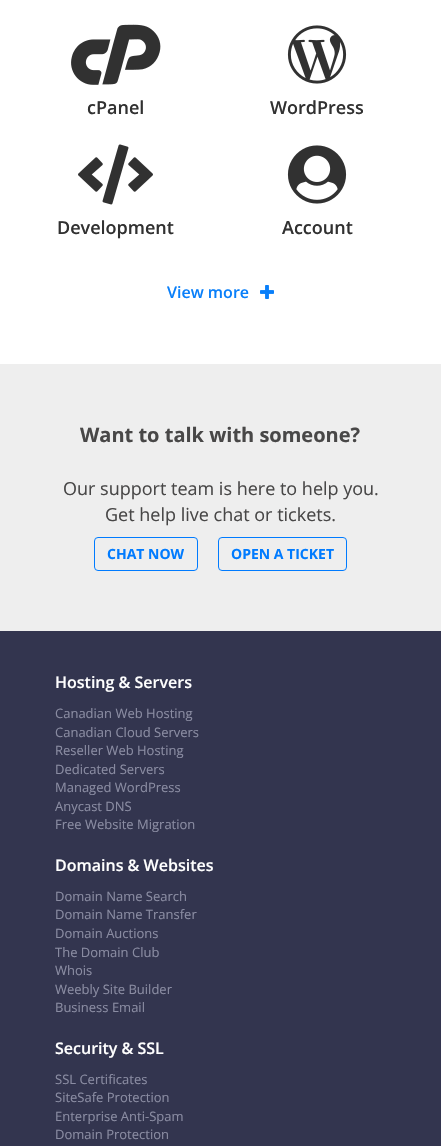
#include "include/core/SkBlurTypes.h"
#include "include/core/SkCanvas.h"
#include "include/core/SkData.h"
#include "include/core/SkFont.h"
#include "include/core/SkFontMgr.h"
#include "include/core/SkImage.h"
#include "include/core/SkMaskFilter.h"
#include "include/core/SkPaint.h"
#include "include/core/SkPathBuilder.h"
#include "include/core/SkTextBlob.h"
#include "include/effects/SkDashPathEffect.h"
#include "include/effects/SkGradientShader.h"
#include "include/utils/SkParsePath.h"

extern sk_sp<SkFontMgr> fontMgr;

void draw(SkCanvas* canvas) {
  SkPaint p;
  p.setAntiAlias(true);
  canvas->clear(SK_ColorWHITE);
  canvas->drawImageRect(SkImages::DeferredFromEncodedData(SkData::MakeFromFileName("images/1.png")), SkRect::MakeLTRB(71, 24, 161, 85), SkSamplingOptions());
  canvas->drawImageRect(SkImages::DeferredFromEncodedData(SkData::MakeFromFileName("images/2.png")), SkRect::MakeLTRB(287, 25, 347, 84), SkSamplingOptions());
  canvas->drawImageRect(SkImages::DeferredFromEncodedData(SkData::MakeFromFileName("images/3.png")), SkRect::MakeLTRB(78, 144, 153, 205), SkSamplingOptions());
  canvas->drawImageRect(SkImages::DeferredFromEncodedData(SkData::MakeFromFileName("images/4.png")), SkRect::MakeLTRB(287, 145, 347, 204), SkSamplingOptions());
  canvas->drawImageRect(SkImages::DeferredFromEncodedData(SkData::MakeFromFileName("images/5.png")), SkRect::MakeLTRB(260, 285, 274, 299), SkSamplingOptions());
  p.setColor(SkColorSetRGB(238, 238, 238));
  canvas->drawRect(SkRect::MakeLTRB(0, 364, 441, 631), p);
  p.setStyle(SkPaint::kStroke_Style);
  p.setStrokeWidth(1);
  p.setColor(SkColorSetRGB(0, 123, 255));
  canvas->drawRoundRect(SkRect::MakeLTRB(94.5f, 537.5f, 197.5f, 570.5f), 3.5f, 3.5f, p);
  canvas->drawRoundRect(SkRect::MakeLTRB(218.5f, 537.5f, 346.5f, 570.5f), 3.5f, 3.5f, p);
  p.setStyle(SkPaint::kFill_Style);
  p.setColor(SkColorSetRGB(51, 53, 79));
  canvas->drawRect(SkRect::MakeLTRB(0, 631, 441, 1146), p);
  SkFont font1(fontMgr->matchFamilyStyle("Open Sans", SkFontStyle(600, SkFontStyle::kNormal_Width, SkFontStyle::kUpright_Slant)), 18);
  font1.setSubpixel(true);
  p.setColor(SkColorSetRGB(49, 49, 49));
  canvas->drawString("cPanel", 87, 114, font1, p);
  canvas->drawString("WordPress", 270, 114, font1, p);
  canvas->drawString("Development", 57, 234, font1, p);
  canvas->drawString("Account", 282, 234, font1, p);
  SkFont font2(fontMgr->matchFamilyStyle("Open Sans", SkFontStyle(600, SkFontStyle::kNormal_Width, SkFontStyle::kUpright_Slant)), 16);
  font2.setSubpixel(true);
  p.setColor(SkColorSetRGB(9, 127, 250));
  canvas->drawString("View more", 167, 298, font2, p);
  SkFont font3(fontMgr->matchFamilyStyle("Open Sans", SkFontStyle::Bold()), 20);
  font3.setSubpixel(true);
  p.setColor(SkColorSetRGB(72, 71, 71));
  canvas->drawString("Want to talk with someone?", 80, 442, font3, p);
  SkFont font4(fontMgr->matchFamilyStyle("Open Sans", SkFontStyle::Normal()), 18);
  font4.setSubpixel(true);
  canvas->drawString("Our support team is here to help you.", 63, 495, font4, p);
  canvas->drawString("Get help live chat or tickets.", 105, 521, font4, p);
  SkFont font5(fontMgr->matchFamilyStyle("Open Sans", SkFontStyle::Bold()), 14);
  font5.setSubpixel(true);
  p.setColor(SkColorSetRGB(0, 123, 255));
  canvas->drawString("CHAT NOW", 107, 559, font5, p);
  canvas->drawString("OPEN A TICKET", 231, 559, font5, p);
  p.setColor(SK_ColorWHITE);
  canvas->drawString("Hosting & Servers", 55, 688, font2, p);
  SkFont font6(fontMgr->matchFamilyStyle("Open Sans", SkFontStyle::Normal()), 13);
  font6.setSubpixel(true);
  p.setColor(SkColorSetRGB(138, 140, 162));
  canvas->drawString("Canadian Web Hosting", 55, 718, font6, p);
  canvas->drawString("Canadian Cloud Servers", 55, 737, font6, p);
  canvas->drawString("Reseller Web Hosting", 55, 755, font6, p);
  canvas->drawString("Dedicated Servers", 55, 774, font6, p);
  canvas->drawString("Managed WordPress", 55, 792, font6, p);
  canvas->drawString("Anycast DNS", 55, 811, font6, p);
  canvas->drawString("Free Website Migration", 55, 829, font6, p);
  p.setColor(SK_ColorWHITE);
  canvas->drawString("Domains & Websites", 55, 871, font2, p);
  p.setColor(SkColorSetRGB(138, 140, 162));
  canvas->drawString("Domain Name Search", 55, 901, font6, p);
  canvas->drawString("Domain Name Transfer", 55, 919, font6, p);
  canvas->drawString("Domain Auctions", 55, 938, font6, p);
  canvas->drawString("The Domain Club", 55, 957, font6, p);
  canvas->drawString("Whois", 55, 975, font6, p);
  canvas->drawString("Weebly Site Builder", 55, 994, font6, p);
  canvas->drawString("Business Email", 55, 1012, font6, p);
  p.setColor(SK_ColorWHITE);
  canvas->drawString("Security & SSL", 55, 1054, font2, p);
  p.setColor(SkColorSetRGB(138, 140, 162));
  canvas->drawString("SSL Certificates", 55, 1084, font6, p);
  canvas->drawString("SiteSafe Protection", 55, 1102, font6, p);
  canvas->drawString("Enterprise Anti-Spam", 55, 1121, font6, p);
  canvas->drawString("Domain Protection", 55, 1139, font6, p);
}
